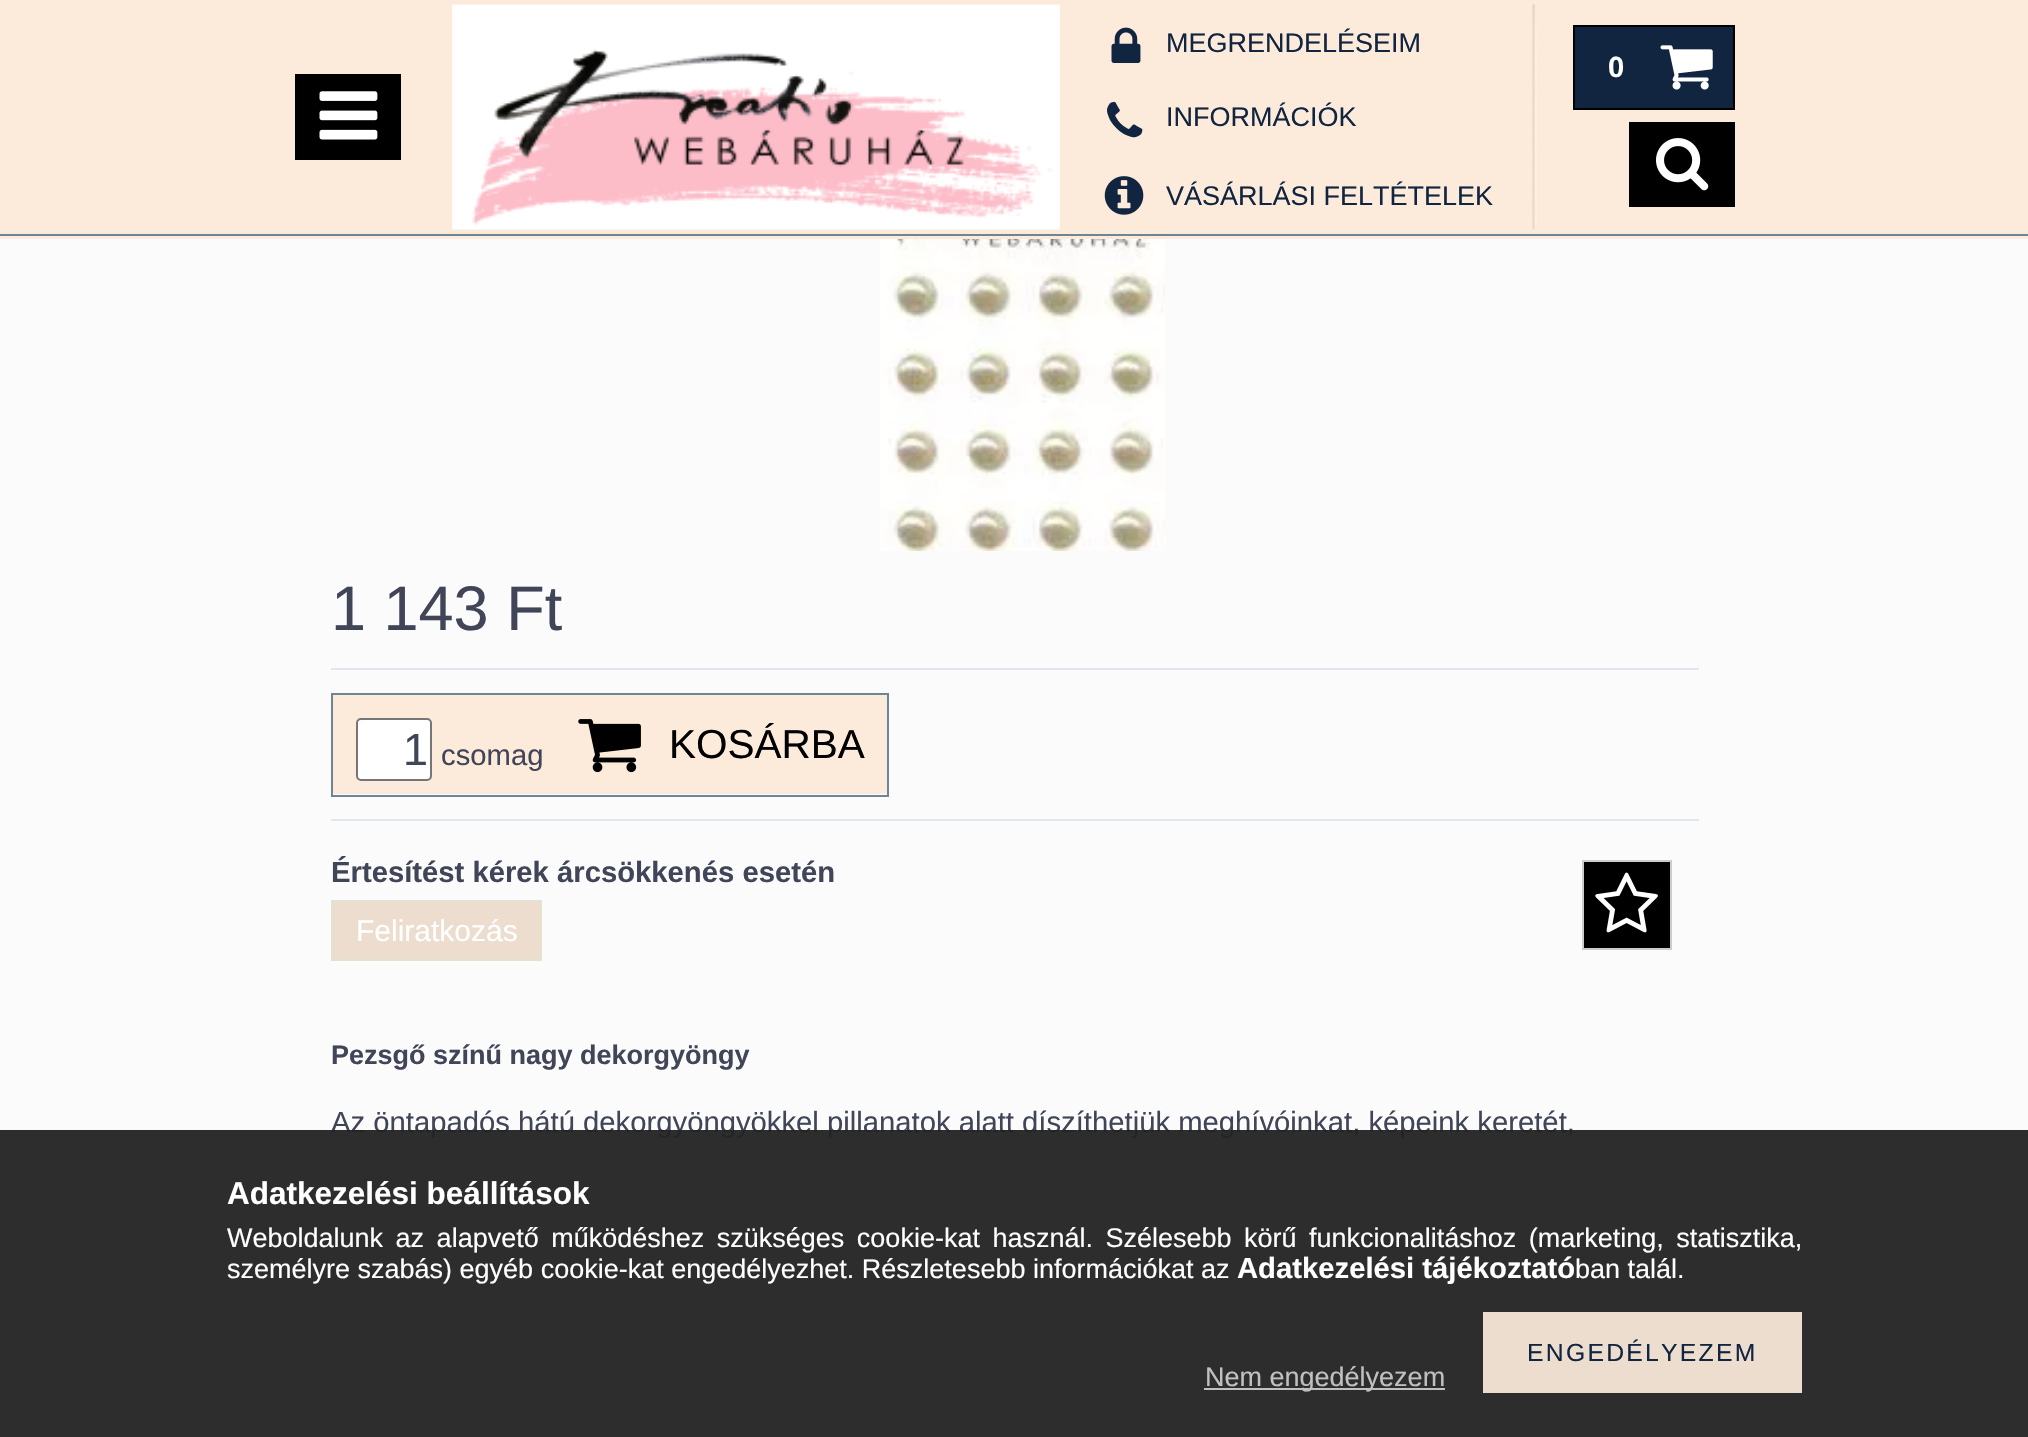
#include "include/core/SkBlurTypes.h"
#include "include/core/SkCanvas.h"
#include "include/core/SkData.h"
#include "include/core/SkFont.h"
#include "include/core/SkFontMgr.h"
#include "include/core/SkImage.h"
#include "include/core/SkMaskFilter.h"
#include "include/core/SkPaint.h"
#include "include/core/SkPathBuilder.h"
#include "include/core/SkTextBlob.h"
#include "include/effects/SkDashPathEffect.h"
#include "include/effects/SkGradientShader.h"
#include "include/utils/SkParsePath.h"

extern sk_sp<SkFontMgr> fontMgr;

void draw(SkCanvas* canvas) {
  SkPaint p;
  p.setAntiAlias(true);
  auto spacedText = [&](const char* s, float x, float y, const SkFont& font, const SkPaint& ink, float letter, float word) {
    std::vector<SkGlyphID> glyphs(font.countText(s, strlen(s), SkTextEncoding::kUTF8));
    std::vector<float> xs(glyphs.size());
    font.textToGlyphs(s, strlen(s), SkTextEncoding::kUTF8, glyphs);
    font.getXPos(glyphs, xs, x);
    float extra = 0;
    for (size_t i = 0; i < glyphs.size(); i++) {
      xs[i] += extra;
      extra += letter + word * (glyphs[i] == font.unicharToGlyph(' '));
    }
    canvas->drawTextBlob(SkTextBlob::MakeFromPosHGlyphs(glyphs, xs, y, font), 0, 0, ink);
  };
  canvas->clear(SkColorSetRGB(251, 251, 251));
  p.setColor(SkColorSetRGB(252, 235, 219));
  canvas->drawRect(SkRect::MakeLTRB(0, 0, 2028, 239), p);
  p.setColor(SkColorSetRGB(109, 134, 150));
  canvas->drawRect(SkRect::MakeLTRB(0, 234, 2028, 236), p);
  canvas->drawImageRect(SkImages::DeferredFromEncodedData(SkData::MakeFromFileName("images/1.png")), SkRect::MakeLTRB(452, 4, 1060, 230), SkSamplingOptions());
  canvas->drawImageRect(SkImages::DeferredFromEncodedData(SkData::MakeFromFileName("images/2.png")), SkRect::MakeLTRB(1532, 4, 1537, 230), SkSamplingOptions());
  canvas->drawImageRect(SkImages::DeferredFromEncodedData(SkData::MakeFromFileName("images/3.png")), SkRect::MakeLTRB(1111, 27, 1141, 63), SkSamplingOptions());
  canvas->drawImageRect(SkImages::DeferredFromEncodedData(SkData::MakeFromFileName("images/4.png")), SkRect::MakeLTRB(1107, 101, 1143, 138), SkSamplingOptions());
  canvas->drawImageRect(SkImages::DeferredFromEncodedData(SkData::MakeFromFileName("images/5.png")), SkRect::MakeLTRB(1104, 176, 1144, 215), SkSamplingOptions());
  p.setColor(SkColorSetRGB(17, 37, 64));
  canvas->drawRect(SkRect::MakeLTRB(1575, 27, 1733, 108), p);
  p.setColor(SK_ColorBLACK);
  canvas->drawRect(SkRect::MakeLTRB(1573, 25, 1735, 27), p);
  canvas->drawRect(SkRect::MakeLTRB(1573, 108, 1652, 110), p);
  canvas->drawRect(SkRect::MakeLTRB(1573, 25, 1575, 110), p);
  canvas->drawRect(SkRect::MakeLTRB(1733, 25, 1735, 110), p);
  canvas->drawRect(SkRect::MakeLTRB(1652, 108, 1735, 110), p);
  canvas->drawImageRect(SkImages::DeferredFromEncodedData(SkData::MakeFromFileName("images/6.png")), SkRect::MakeLTRB(1660, 45, 1713, 90), SkSamplingOptions());
  canvas->drawRect(SkRect::MakeLTRB(1629, 122, 1735, 207), p);
  canvas->drawImageRect(SkImages::DeferredFromEncodedData(SkData::MakeFromFileName("images/7.png")), SkRect::MakeLTRB(1656, 138, 1709, 191), SkSamplingOptions());
  canvas->drawRect(SkRect::MakeLTRB(295, 74, 401, 160), p);
  canvas->drawImageRect(SkImages::DeferredFromEncodedData(SkData::MakeFromFileName("images/8.png")), SkRect::MakeLTRB(319, 91, 378, 140), SkSamplingOptions());
  canvas->drawImageRect(SkImages::DeferredFromEncodedData(SkData::MakeFromFileName("images/9.png")), SkRect::MakeLTRB(880, 239, 1165, 551), SkSamplingOptions());
  p.setColor(SkColorSetRGB(225, 232, 237));
  canvas->drawRect(SkRect::MakeLTRB(331, 668, 1699, 670), p);
  canvas->drawRect(SkRect::MakeLTRB(331, 819, 1699, 821), p);
  p.setStyle(SkPaint::kStroke_Style);
  p.setStrokeWidth(2);
  p.setColor(SkColorSetRGB(109, 134, 150));
  canvas->drawRect(SkRect::MakeLTRB(332, 694, 888, 796), p);
  p.setStyle(SkPaint::kFill_Style);
  p.setColor(SkColorSetRGB(252, 235, 219));
  canvas->drawRect(SkRect::MakeLTRB(333, 695, 887, 794), p);
  p.setColor(SK_ColorWHITE);
  canvas->drawRoundRect(SkRect::MakeLTRB(357, 719, 431, 780), 4, 4, p);
  p.setStyle(SkPaint::kStroke_Style);
  p.setColor(SkColorSetRGB(118, 118, 118));
  canvas->drawRoundRect(SkRect::MakeLTRB(357, 719, 431, 780), 4, 4, p);
  canvas->drawImageRect(SkImages::DeferredFromEncodedData(SkData::MakeFromFileName("images/10.png")), SkRect::MakeLTRB(578, 719, 641, 773), SkSamplingOptions());
  p.setStyle(SkPaint::kFill_Style);
  p.setColor(SkColorSetRGB(236, 221, 206));
  canvas->drawRect(SkRect::MakeLTRB(332, 901, 541, 960), p);
  p.setStyle(SkPaint::kStroke_Style);
  p.setColor(SkColorSetRGB(225, 226, 208));
  canvas->drawRect(SkRect::MakeLTRB(332, 901, 541, 960), p);
  p.setStyle(SkPaint::kFill_Style);
  p.setColor(SK_ColorBLACK);
  canvas->drawRect(SkRect::MakeLTRB(1583, 861, 1671, 949), p);
  p.setStyle(SkPaint::kStroke_Style);
  p.setColor(SkColorSetRGB(204, 204, 204));
  canvas->drawRect(SkRect::MakeLTRB(1583, 861, 1671, 949), p);
  canvas->drawImageRect(SkImages::DeferredFromEncodedData(SkData::MakeFromFileName("images/11.png")), SkRect::MakeLTRB(1595, 872, 1658, 933), SkSamplingOptions());
  SkFont font1(fontMgr->matchFamilyStyle("Liberation Sans", SkFontStyle::Normal()), 27);
  font1.setSubpixel(true);
  p.setStyle(SkPaint::kFill_Style);
  p.setColor(SkColorSetRGB(17, 37, 64));
  canvas->drawString("MEGRENDELÉSEIM", 1166, 52, font1, p);
  canvas->drawString("INFORMÁCIÓK", 1166, 126, font1, p);
  canvas->drawString("VÁSÁRLÁSI FELTÉTELEK", 1166, 205, font1, p);
  SkFont font2(fontMgr->matchFamilyStyle("Liberation Sans", SkFontStyle::Bold()), 29.25f);
  font2.setSubpixel(true);
  p.setColor(SK_ColorWHITE);
  canvas->drawString("0", 1608, 77, font2, p);
  SkFont font3(fontMgr->matchFamilyStyle("Liberation Sans", SkFontStyle::Normal()), 63);
  font3.setSubpixel(true);
  p.setColor(SkColorSetRGB(65, 69, 88));
  canvas->drawString("1 143 Ft", 331, 630, font3, p);
  SkFont font4(fontMgr->matchFamilyStyle("Liberation Sans", SkFontStyle::Normal()), 45);
  font4.setSubpixel(true);
  canvas->drawString("1", 403, 765, font4, p);
  SkFont font5(fontMgr->matchFamilyStyle("Liberation Sans", SkFontStyle::Normal()), 29.25f);
  font5.setSubpixel(true);
  canvas->drawString("csomag", 441, 765, font5, p);
  SkFont font6(fontMgr->matchFamilyStyle("Liberation Sans", SkFontStyle::Normal()), 40.5f);
  font6.setSubpixel(true);
  p.setColor(SK_ColorBLACK);
  canvas->drawString("KOSÁRBA", 669, 758, font6, p);
  p.setColor(SkColorSetRGB(65, 69, 88));
  canvas->drawString("Értesítést kérek árcsökkenés esetén", 331, 882, font2, p);
  SkFont font7(fontMgr->matchFamilyStyle("Liberation Sans", SkFontStyle::Normal()), 30);
  font7.setSubpixel(true);
  p.setColor(SK_ColorWHITE);
  canvas->drawString("Feliratkozás", 356, 941, font7, p);
  SkFont font8(fontMgr->matchFamilyStyle("Liberation Sans", SkFontStyle::Bold()), 27);
  font8.setSubpixel(true);
  p.setColor(SkColorSetRGB(65, 69, 88));
  canvas->drawString("Pezsgő színű nagy dekorgyöngy", 331, 1064, font8, p);
  canvas->drawString("Az öntapadós hátú dekorgyöngyökkel pillanatok alatt díszíthetjük meghívóinkat, képeink keretét,", 331, 1132, font5, p);
  p.setColor(SkColorSetARGB(242, 34, 34, 34));
  canvas->drawRect(SkRect::MakeLTRB(0, 1130, 2028, 1437), p);
  SkFont font9(fontMgr->matchFamilyStyle("Liberation Sans", SkFontStyle::Bold()), 31.5f);
  font9.setSubpixel(true);
  p.setColor(SK_ColorWHITE);
  canvas->drawString("Adatkezelési beállítások", 227, 1204, font9, p);
  spacedText("Weboldalunk az alapvető működéshez szükséges cookie-kat használ. Szélesebb körű funkcionalitáshoz (marketing, statisztika,", 227, 1247, font1, p, 0, 5);
  canvas->drawString("személyre szabás) egyéb cookie-kat engedélyezhet. Részletesebb információkat az", 227, 1278, font1, p);
  canvas->drawString("Adatkezelési tájékoztató", 1237, 1278, font2, p);
  canvas->drawString("ban talál.", 1575, 1278, font1, p);
  p.setColor(SkColorSetRGB(236, 221, 206));
  canvas->drawRect(SkRect::MakeLTRB(1483, 1312, 1802, 1393), p);
  SkFont font10(fontMgr->matchFamilyStyle("Liberation Sans", SkFontStyle::Normal()), 24.75f);
  font10.setSubpixel(true);
  p.setColor(SkColorSetRGB(17, 37, 64));
  spacedText("ENGEDÉLYEZEM", 1527, 1361, font10, p, 2.25f, 0);
  p.setColor(SkColorSetRGB(192, 192, 192));
  canvas->drawRect(SkRect::MakeLTRB(1204, 1388, 1445, 1390), p);
  canvas->drawString("Nem engedélyezem", 1205, 1386, font1, p);
}
